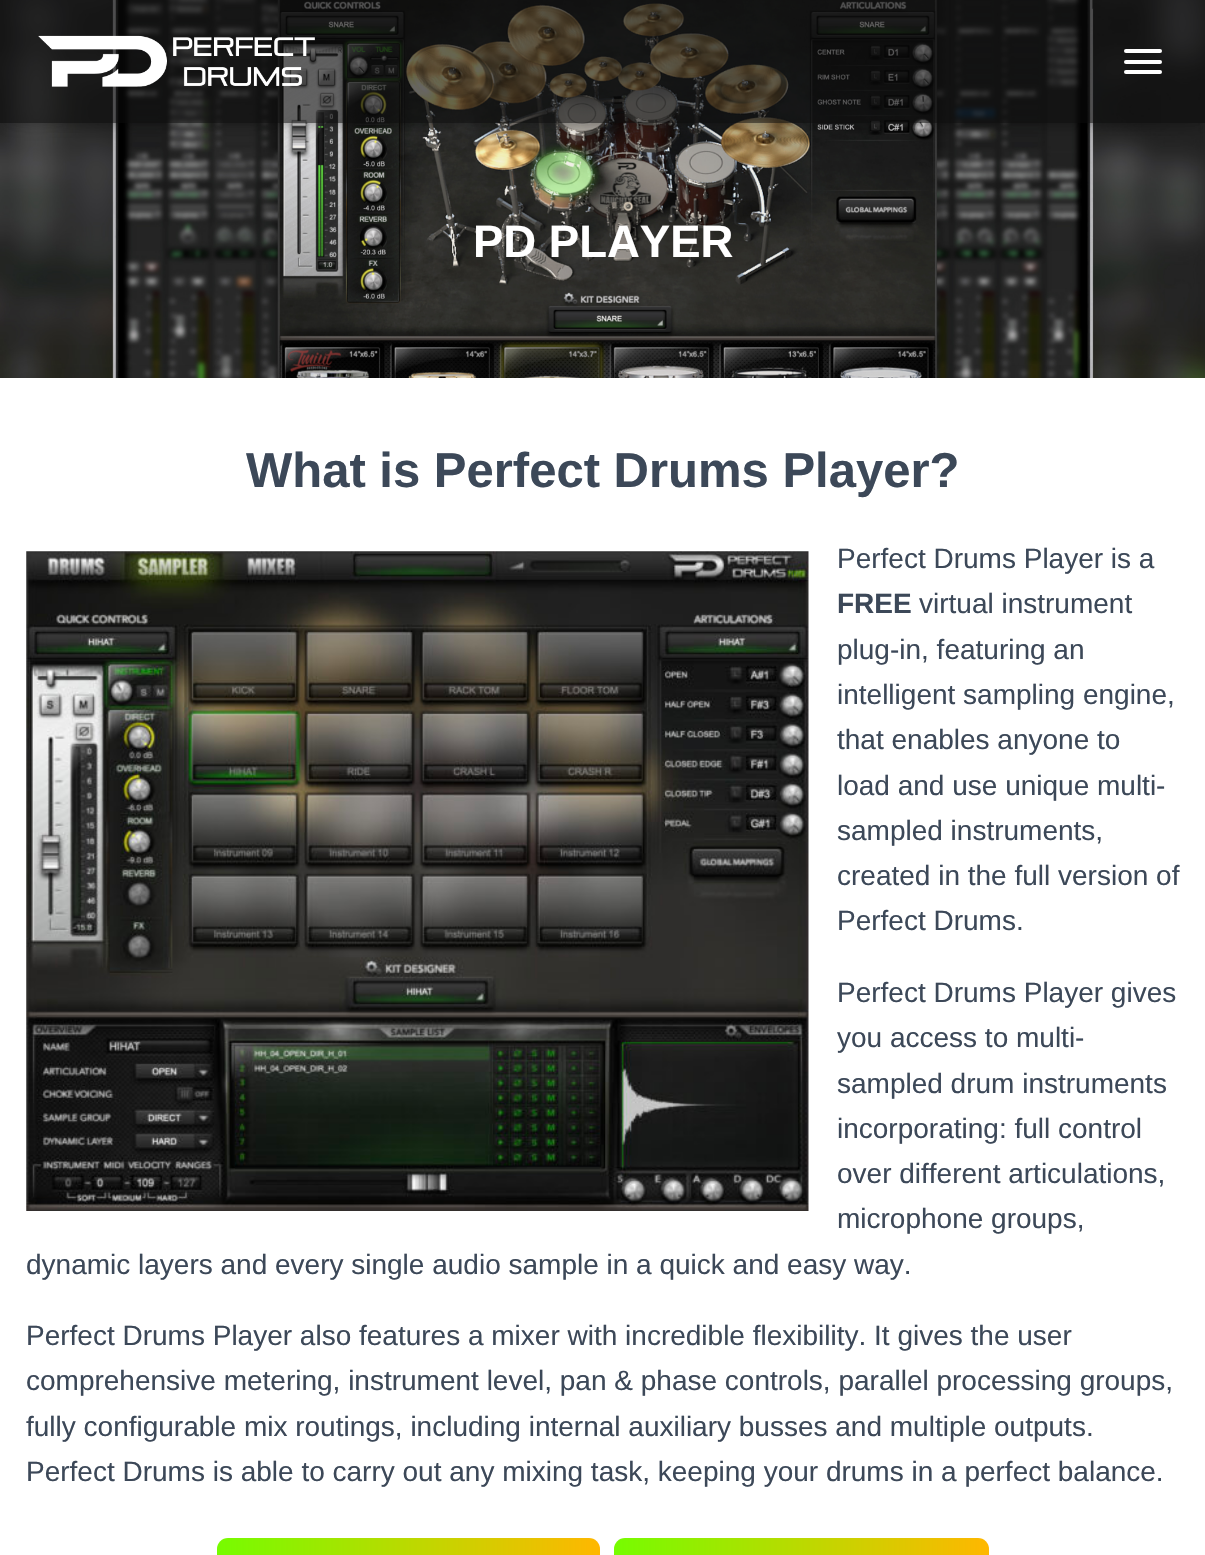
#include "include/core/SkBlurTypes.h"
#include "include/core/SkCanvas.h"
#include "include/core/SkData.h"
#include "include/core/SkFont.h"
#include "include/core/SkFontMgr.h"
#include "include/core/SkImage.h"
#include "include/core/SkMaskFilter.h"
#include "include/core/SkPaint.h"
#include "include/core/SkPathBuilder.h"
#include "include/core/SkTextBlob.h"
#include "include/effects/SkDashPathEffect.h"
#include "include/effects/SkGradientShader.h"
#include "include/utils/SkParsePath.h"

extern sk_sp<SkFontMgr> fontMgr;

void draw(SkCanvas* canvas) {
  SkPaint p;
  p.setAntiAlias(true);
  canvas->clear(SK_ColorWHITE);
  canvas->drawImageRect(SkImages::DeferredFromEncodedData(SkData::MakeFromFileName("images/2.png")), SkRect::MakeLTRB(0, 0, 1205, 378), SkSamplingOptions());
  canvas->save();
  canvas->clipPath(SkPathBuilder(SkPathFillType::kEvenOdd).moveTo(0, 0).lineTo(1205, 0).lineTo(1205, 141).lineTo(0, 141).close().moveTo(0, 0).lineTo(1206, 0).lineTo(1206, 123).lineTo(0, 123).close().detach(), true);
  p.setColor(SkColorSetARGB(26, 0, 0, 0));
  p.setMaskFilter(SkMaskFilter::MakeBlur(kNormal_SkBlurStyle, 4.5f));
  canvas->drawRect(SkRect::MakeLTRB(4, 11, 1202, 126), p);
  p.setMaskFilter(nullptr);
  canvas->restore();
  canvas->save();
  canvas->clipPath(SkPathBuilder(SkPathFillType::kEvenOdd).moveTo(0, 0).lineTo(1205, 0).lineTo(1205, 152).lineTo(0, 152).close().moveTo(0, 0).lineTo(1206, 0).lineTo(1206, 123).lineTo(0, 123).close().detach(), true);
  p.setColor(SkColorSetARGB(31, 0, 0, 0));
  p.setMaskFilter(SkMaskFilter::MakeBlur(kNormal_SkBlurStyle, 9));
  canvas->drawRect(SkRect::MakeLTRB(0, 2, 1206, 124), p);
  p.setMaskFilter(nullptr);
  canvas->restore();
  canvas->save();
  canvas->clipPath(SkPathBuilder(SkPathFillType::kEvenOdd).moveTo(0, 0).lineTo(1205, 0).lineTo(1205, 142).lineTo(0, 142).close().moveTo(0, 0).lineTo(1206, 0).lineTo(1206, 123).lineTo(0, 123).close().detach(), true);
  p.setColor(SkColorSetARGB(107, 0, 0, 0));
  p.setMaskFilter(SkMaskFilter::MakeBlur(kNormal_SkBlurStyle, 9));
  canvas->drawRect(SkRect::MakeLTRB(11, 12, 1195, 114), p);
  p.setMaskFilter(nullptr);
  canvas->restore();
  p.setColor(SkColorSetARGB(153, 10, 10, 10));
  canvas->drawRect(SkRect::MakeLTRB(0, 0, 1205, 123), p);
  canvas->drawImageRect(SkImages::DeferredFromEncodedData(SkData::MakeFromFileName("images/1.png")), SkRect::MakeLTRB(38, 35, 315, 87), SkSamplingOptions());
  p.setColor(SK_ColorWHITE);
  canvas->drawRoundRect(SkRect::MakeLTRB(1124, 49, 1162, 53), 2, 2, p);
  canvas->drawRoundRect(SkRect::MakeLTRB(1124, 60, 1162, 64), 2, 2, p);
  canvas->drawRoundRect(SkRect::MakeLTRB(1124, 70, 1162, 74), 2, 2, p);
  p.setColor(SkColorSetARGB(31, 0, 0, 0));
  p.setMaskFilter(SkMaskFilter::MakeBlur(kNormal_SkBlurStyle, 26));
  canvas->drawRect(SkRect::MakeLTRB(-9, 380, 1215, 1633), p);
  p.setMaskFilter(nullptr);
  p.setColor(SK_ColorWHITE);
  canvas->drawRect(SkRect::MakeLTRB(0, 378, 1205, 1555), p);
  canvas->drawImageRect(SkImages::DeferredFromEncodedData(SkData::MakeFromFileName("images/3.png")), SkRect::MakeLTRB(26, 551, 809, 1211), SkSamplingOptions());
  {
    const SkColor colors[] = {SkColorSetRGB(118, 252, 0), SkColorSetRGB(255, 183, 0)};
    const float stops[] = {0, 1};
    const SkPoint ends[] = {{217, 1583}, {600, 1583}};
    p.setShader(SkGradientShader::MakeLinear(ends, colors, stops, 2, SkTileMode::kClamp));
    p.setAlpha(255);
  }
  canvas->drawRoundRect(SkRect::MakeLTRB(217, 1538, 600, 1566), 11, 11, p);
  {
    const SkColor colors[] = {SkColorSetRGB(118, 252, 0), SkColorSetRGB(255, 183, 0)};
    const float stops[] = {0, 1};
    const SkPoint ends[] = {{614, 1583}, {989, 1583}};
    p.setShader(SkGradientShader::MakeLinear(ends, colors, stops, 2, SkTileMode::kClamp));
    p.setAlpha(255);
  }
  canvas->drawRoundRect(SkRect::MakeLTRB(614, 1538, 989, 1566), 11, 11, p);
  SkFont font1(fontMgr->matchFamilyStyle("Liberation Sans", SkFontStyle::Bold()), 45.5f);
  font1.setSubpixel(true);
  p.setShader(nullptr);
  p.setColor(SK_ColorWHITE);
  canvas->drawString("PD PLAYER", 473, 257, font1, p);
  SkFont font2(fontMgr->matchFamilyStyle("Liberation Sans", SkFontStyle::Bold()), 49);
  font2.setSubpixel(true);
  p.setColor(SkColorSetRGB(60, 72, 88));
  canvas->drawString("What is Perfect Drums Player?", 246, 487, font2, p);
  SkFont font3(fontMgr->matchFamilyStyle("Liberation Sans", SkFontStyle::Normal()), 28);
  font3.setSubpixel(true);
  canvas->drawString("Perfect Drums Player is a", 837, 568, font3, p);
  SkFont font4(fontMgr->matchFamilyStyle("Liberation Sans", SkFontStyle::Bold()), 28);
  font4.setSubpixel(true);
  canvas->drawString("FREE", 837, 613, font4, p);
  canvas->drawString("virtual instrument", 919, 613, font3, p);
  canvas->drawString("plug-in, featuring an", 837, 659, font3, p);
  canvas->drawString("intelligent sampling engine,", 837, 704, font3, p);
  canvas->drawString("that enables anyone to", 837, 749, font3, p);
  canvas->drawString("load and use unique multi-", 837, 795, font3, p);
  canvas->drawString("sampled instruments,", 837, 840, font3, p);
  canvas->drawString("created in the full version of", 837, 885, font3, p);
  canvas->drawString("Perfect Drums.", 837, 930, font3, p);
  canvas->drawString("Perfect Drums Player gives", 837, 1002, font3, p);
  canvas->drawString("you access to multi-", 837, 1047, font3, p);
  canvas->drawString("sampled drum instruments", 837, 1093, font3, p);
  canvas->drawString("incorporating: full control", 837, 1138, font3, p);
  canvas->drawString("over different articulations,", 837, 1183, font3, p);
  canvas->drawString("microphone groups,", 837, 1228, font3, p);
  canvas->drawString("dynamic layers and every single audio sample in a quick and easy way.", 26, 1274, font3, p);
  canvas->drawString("Perfect Drums Player also features a mixer with incredible flexibility. It gives the user", 26, 1345, font3, p);
  canvas->drawString("comprehensive metering, instrument level, pan & phase controls, parallel processing groups,", 26, 1390, font3, p);
  canvas->drawString("fully configurable mix routings, including internal auxiliary busses and multiple outputs.", 26, 1436, font3, p);
  canvas->drawString("Perfect Drums is able to carry out any mixing task, keeping your drums in a perfect balance.", 26, 1481, font3, p);
}
